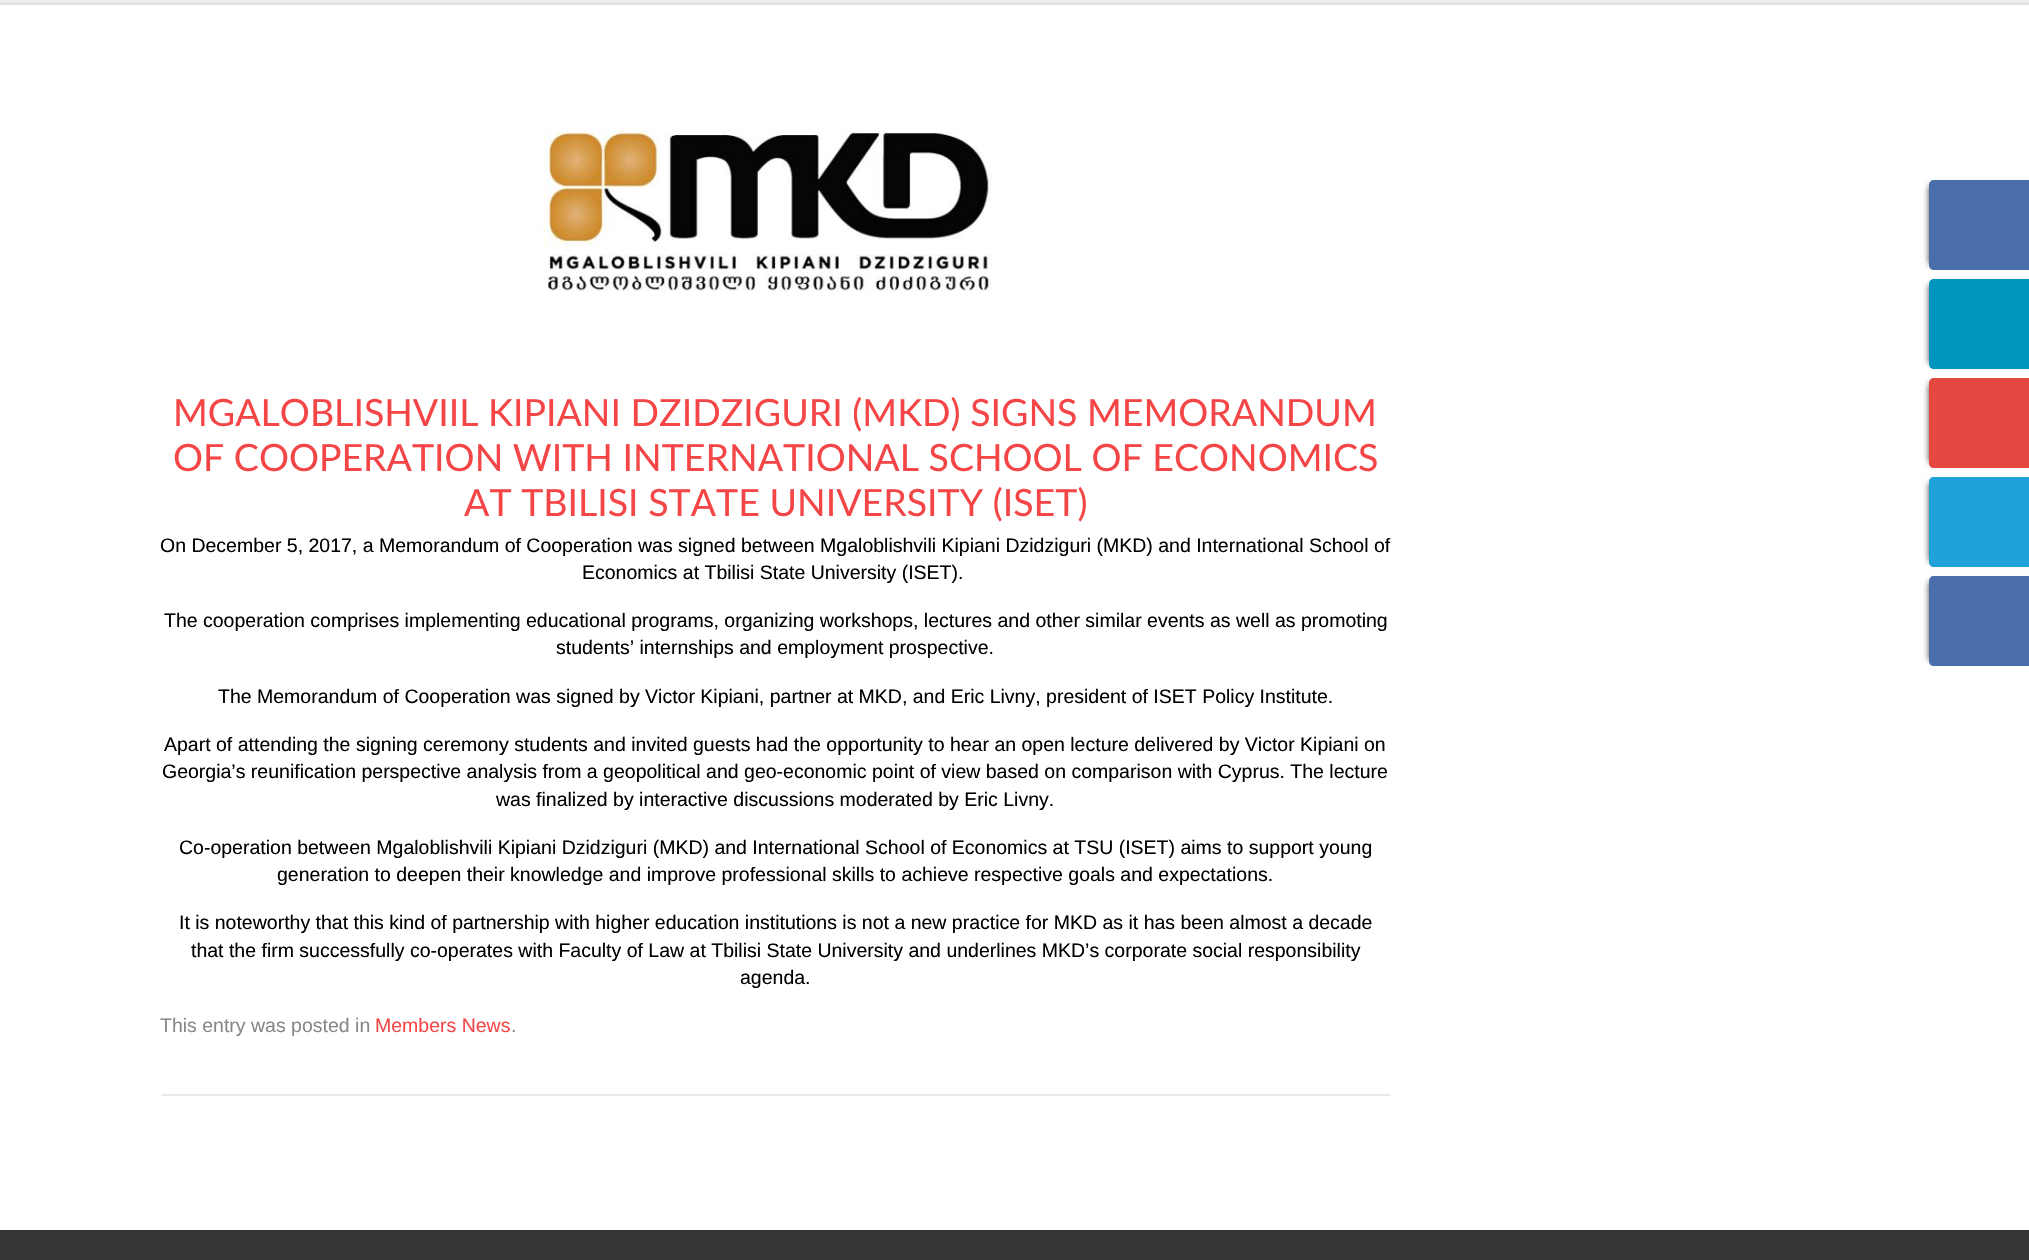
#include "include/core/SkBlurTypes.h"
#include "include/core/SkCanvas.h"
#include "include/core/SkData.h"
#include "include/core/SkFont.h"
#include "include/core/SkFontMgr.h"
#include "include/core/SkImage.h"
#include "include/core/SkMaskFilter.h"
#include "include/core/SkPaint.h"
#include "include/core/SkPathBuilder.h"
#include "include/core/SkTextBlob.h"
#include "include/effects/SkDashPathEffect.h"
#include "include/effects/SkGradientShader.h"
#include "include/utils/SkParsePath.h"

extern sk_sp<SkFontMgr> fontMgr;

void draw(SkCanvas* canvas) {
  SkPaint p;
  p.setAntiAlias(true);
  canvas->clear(SK_ColorWHITE);
  p.setColor(SkColorSetRGB(233, 237, 235));
  canvas->drawRect(SkRect::MakeLTRB(0, 0, 2029, 3), p);
  p.setColor(SkColorSetRGB(224, 224, 224));
  canvas->drawRect(SkRect::MakeLTRB(0, 3, 2029, 5), p);
  canvas->drawImageRect(SkImages::DeferredFromEncodedData(SkData::MakeFromFileName("images/1.png")), SkRect::MakeLTRB(541, 130, 993, 291), SkSamplingOptions());
  p.setColor(SkColorSetRGB(233, 233, 233));
  canvas->drawRect(SkRect::MakeLTRB(161, 1094, 1391, 1096), p);
  p.setColor(SkColorSetRGB(68, 68, 68));
  p.setMaskFilter(SkMaskFilter::MakeBlur(kNormal_SkBlurStyle, 3));
  canvas->drawRect(SkRect::MakeLTRB(1929, 186, 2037, 264), p);
  p.setMaskFilter(nullptr);
  p.setColor(SkColorSetRGB(74, 110, 169));
  canvas->drawPath(SkPathBuilder().moveTo(1934, 180).lineTo(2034, 180).lineTo(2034, 270).lineTo(1934, 270).cubicTo(1931, 270, 1929, 268, 1929, 265).lineTo(1929, 185).cubicTo(1929, 182, 1931, 180, 1934, 180).close().detach(), p);
  p.setColor(SkColorSetRGB(68, 68, 68));
  p.setMaskFilter(SkMaskFilter::MakeBlur(kNormal_SkBlurStyle, 3));
  canvas->drawRect(SkRect::MakeLTRB(1929, 285, 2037, 363), p);
  p.setMaskFilter(nullptr);
  p.setColor(SkColorSetRGB(0, 149, 188));
  canvas->drawPath(SkPathBuilder().moveTo(1934, 279).lineTo(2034, 279).lineTo(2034, 369).lineTo(1934, 369).cubicTo(1931, 369, 1929, 367, 1929, 364).lineTo(1929, 284).cubicTo(1929, 281, 1931, 279, 1934, 279).close().detach(), p);
  p.setColor(SkColorSetRGB(68, 68, 68));
  p.setMaskFilter(SkMaskFilter::MakeBlur(kNormal_SkBlurStyle, 3));
  canvas->drawRect(SkRect::MakeLTRB(1929, 384, 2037, 462), p);
  p.setMaskFilter(nullptr);
  p.setColor(SkColorSetRGB(228, 72, 64));
  canvas->drawPath(SkPathBuilder().moveTo(1934, 378).lineTo(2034, 378).lineTo(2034, 468).lineTo(1934, 468).cubicTo(1931, 468, 1929, 466, 1929, 463).lineTo(1929, 383).cubicTo(1929, 380, 1931, 378, 1934, 378).close().detach(), p);
  p.setColor(SkColorSetRGB(68, 68, 68));
  p.setMaskFilter(SkMaskFilter::MakeBlur(kNormal_SkBlurStyle, 3));
  canvas->drawRect(SkRect::MakeLTRB(1929, 483, 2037, 561), p);
  p.setMaskFilter(nullptr);
  p.setColor(SkColorSetRGB(32, 161, 216));
  canvas->drawPath(SkPathBuilder().moveTo(1934, 477).lineTo(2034, 477).lineTo(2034, 567).lineTo(1934, 567).cubicTo(1931, 567, 1929, 565, 1929, 562).lineTo(1929, 482).cubicTo(1929, 479, 1931, 477, 1934, 477).close().detach(), p);
  p.setColor(SkColorSetRGB(68, 68, 68));
  p.setMaskFilter(SkMaskFilter::MakeBlur(kNormal_SkBlurStyle, 3));
  canvas->drawRect(SkRect::MakeLTRB(1929, 582, 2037, 660), p);
  p.setMaskFilter(nullptr);
  p.setColor(SkColorSetRGB(74, 110, 169));
  canvas->drawPath(SkPathBuilder().moveTo(1934, 576).lineTo(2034, 576).lineTo(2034, 666).lineTo(1934, 666).cubicTo(1931, 666, 1929, 664, 1929, 661).lineTo(1929, 581).cubicTo(1929, 578, 1931, 576, 1934, 576).close().detach(), p);
  p.setColor(SkColorSetRGB(53, 55, 54));
  canvas->drawRect(SkRect::MakeLTRB(0, 1230, 2029, 1260), p);
  SkFont font1(fontMgr->matchFamilyStyle("Lato", SkFontStyle::Normal()), 37.5f);
  font1.setSubpixel(true);
  p.setColor(SkColorSetRGB(244, 70, 71));
  canvas->drawString("MGALOBLISHVIIL KIPIANI DZIDZIGURI (MKD) SIGNS MEMORANDUM", 173, 426, font1, p);
  canvas->drawString("OF COOPERATION WITH INTERNATIONAL SCHOOL OF ECONOMICS", 173, 471, font1, p);
  canvas->drawString("AT TBILISI STATE UNIVERSITY (ISET)", 464, 516, font1, p);
  SkFont font2(fontMgr->matchFamilyStyle("Liberation Sans", SkFontStyle::Normal()), 19.5f);
  font2.setSubpixel(true);
  p.setColor(SK_ColorBLACK);
  canvas->drawString("On December 5, 2017, a Memorandum of Cooperation was signed between Mgaloblishvili Kipiani Dzidziguri (MKD) and International School of", 160, 552, font2, p);
  canvas->drawString("Economics at Tbilisi State University (ISET).", 582, 579, font2, p);
  canvas->drawString("The cooperation comprises implementing educational programs, organizing workshops, lectures and other similar events as well as promoting", 164, 627, font2, p);
  canvas->drawString("students’ internships and employment prospective.", 556, 654, font2, p);
  canvas->drawString("The Memorandum of Cooperation was signed by Victor Kipiani, partner at MKD, and Eric Livny, president of ISET Policy Institute.", 218, 703, font2, p);
  canvas->drawString("Apart of attending the signing ceremony students and invited guests had the opportunity to hear an open lecture delivered by Victor Kipiani on", 164, 751, font2, p);
  canvas->drawString("Georgia’s reunification perspective analysis from a geopolitical and geo-economic point of view based on comparison with Cyprus. The lecture", 162, 778, font2, p);
  canvas->drawString("was finalized by interactive discussions moderated by Eric Livny.", 496, 806, font2, p);
  canvas->drawString("Co-operation between Mgaloblishvili Kipiani Dzidziguri (MKD) and International School of Economics at TSU (ISET) aims to support young", 179, 854, font2, p);
  canvas->drawString("generation to deepen their knowledge and improve professional skills to achieve respective goals and expectations.", 277, 881, font2, p);
  canvas->drawString("It is noteworthy that this kind of partnership with higher education institutions is not a new practice for MKD as it has been almost a decade", 179, 929, font2, p);
  canvas->drawString("that the firm successfully co-operates with Faculty of Law at Tbilisi State University and underlines MKD’s corporate social responsibility", 191, 957, font2, p);
  canvas->drawString("agenda.", 740, 984, font2, p);
  p.setColor(SkColorSetRGB(136, 136, 136));
  canvas->drawString("This entry was posted in", 160, 1032, font2, p);
  p.setColor(SkColorSetRGB(244, 70, 71));
  canvas->drawString("Members News", 375, 1032, font2, p);
  p.setColor(SkColorSetRGB(136, 136, 136));
  canvas->drawString(".", 511, 1032, font2, p);
}
